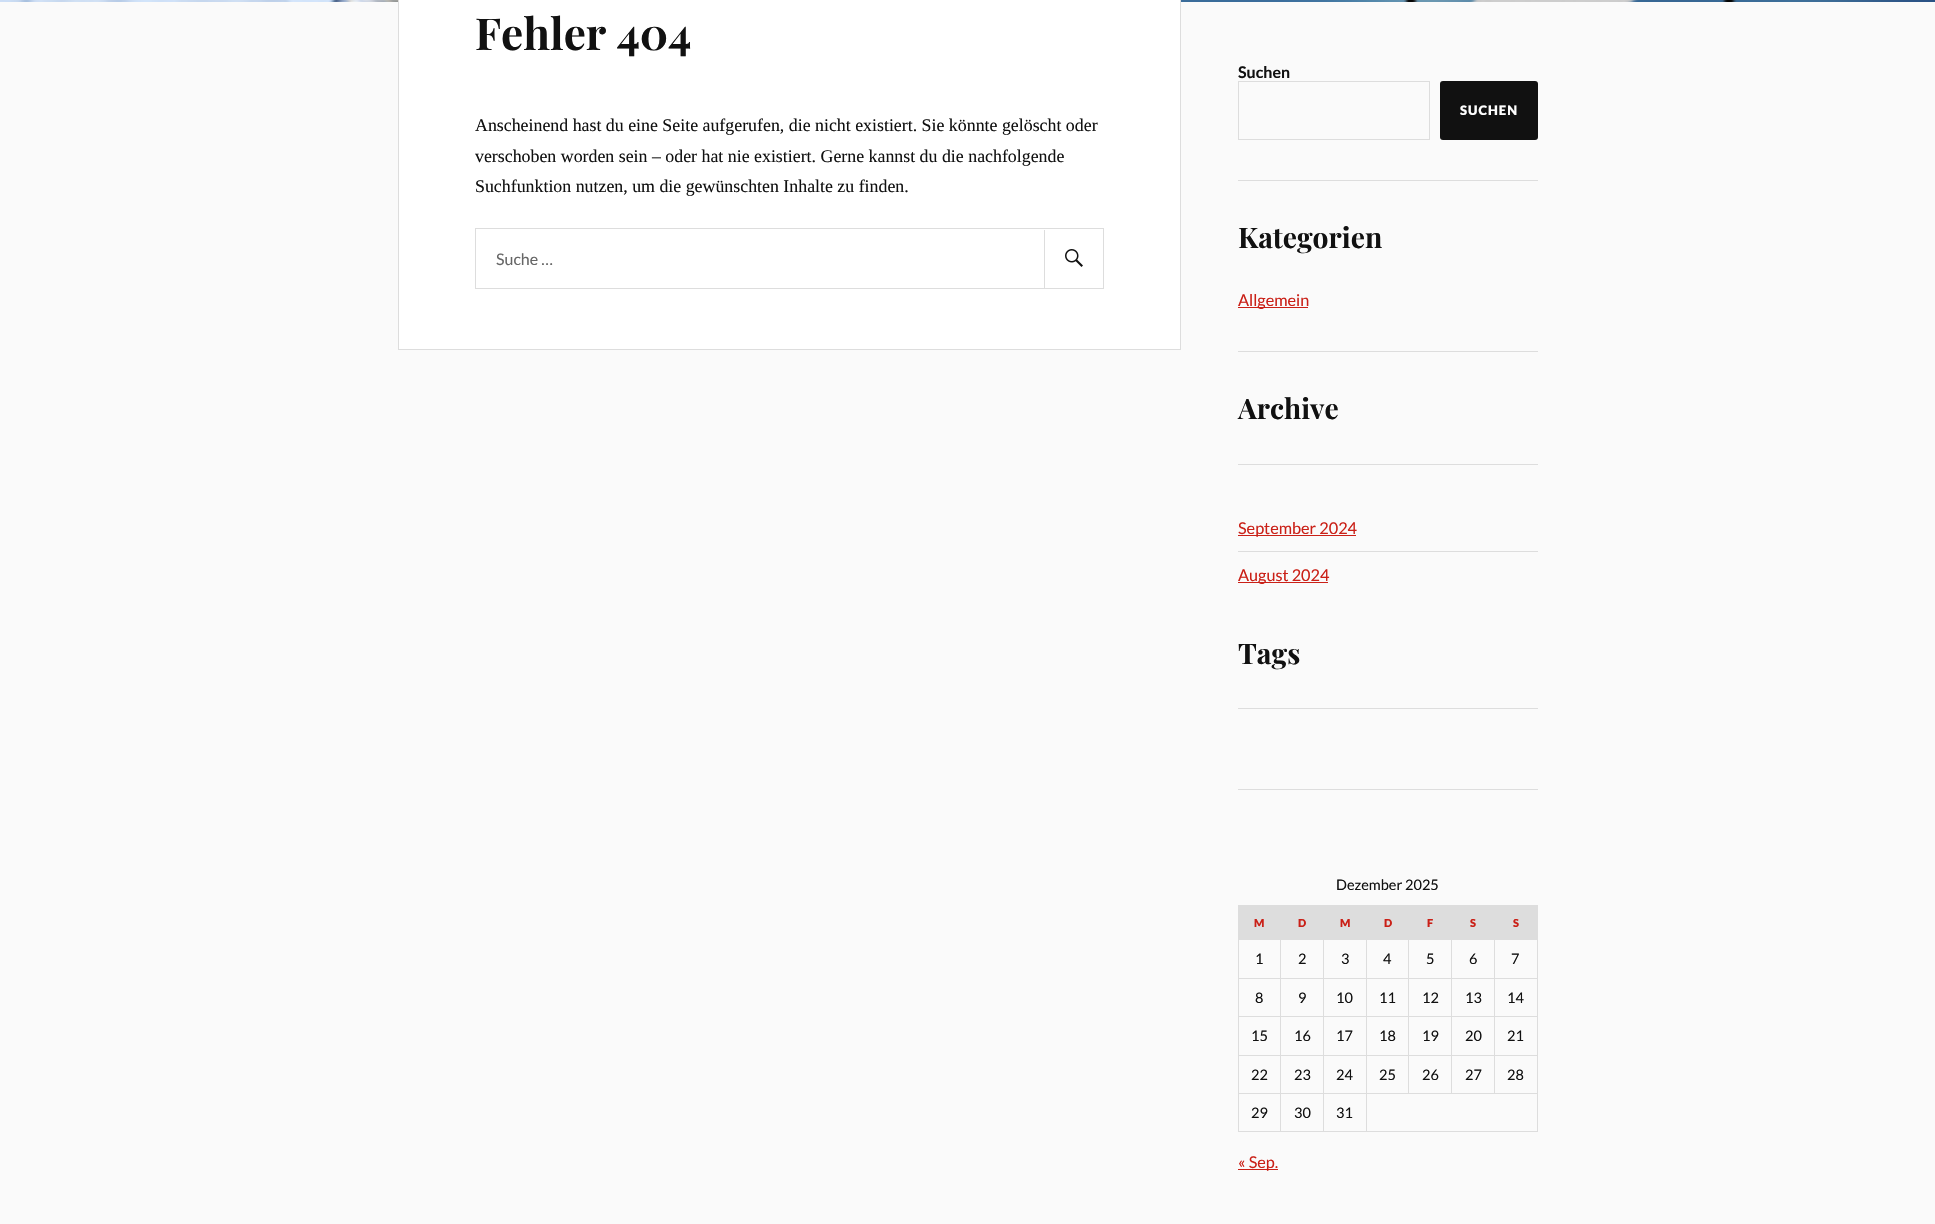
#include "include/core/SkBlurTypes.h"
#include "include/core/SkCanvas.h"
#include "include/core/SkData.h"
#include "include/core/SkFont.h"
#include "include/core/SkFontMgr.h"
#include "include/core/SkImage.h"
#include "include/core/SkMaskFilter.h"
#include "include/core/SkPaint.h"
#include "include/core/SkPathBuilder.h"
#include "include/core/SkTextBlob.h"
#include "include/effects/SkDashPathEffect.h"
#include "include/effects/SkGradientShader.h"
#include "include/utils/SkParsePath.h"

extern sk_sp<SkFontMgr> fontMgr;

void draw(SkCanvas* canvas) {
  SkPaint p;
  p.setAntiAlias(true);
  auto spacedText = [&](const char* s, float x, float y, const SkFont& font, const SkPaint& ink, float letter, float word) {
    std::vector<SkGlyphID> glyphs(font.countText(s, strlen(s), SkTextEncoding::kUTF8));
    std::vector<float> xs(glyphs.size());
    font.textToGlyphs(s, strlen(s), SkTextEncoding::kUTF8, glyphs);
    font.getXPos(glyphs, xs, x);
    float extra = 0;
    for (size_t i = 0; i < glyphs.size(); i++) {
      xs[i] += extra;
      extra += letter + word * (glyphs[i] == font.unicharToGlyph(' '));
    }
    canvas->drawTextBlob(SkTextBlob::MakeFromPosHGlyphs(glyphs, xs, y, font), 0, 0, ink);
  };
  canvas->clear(SkColorSetRGB(250, 250, 250));
  canvas->drawImageRect(SkImages::DeferredFromEncodedData(SkData::MakeFromFileName("images/1.png")), SkRect::MakeLTRB(0, 0, 1935, 2), SkSamplingOptions());
  p.setColor(SK_ColorWHITE);
  canvas->drawRect(SkRect::MakeLTRB(398.5f, -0.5f, 1180.5f, 349.5f), p);
  p.setStyle(SkPaint::kStroke_Style);
  p.setStrokeWidth(1);
  p.setColor(SkColorSetRGB(221, 221, 221));
  canvas->drawRect(SkRect::MakeLTRB(398.5f, -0.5f, 1180.5f, 349.5f), p);
  canvas->drawRect(SkRect::MakeLTRB(475.5f, 228.5f, 1103.5f, 288.5f), p);
  p.setStyle(SkPaint::kFill_Style);
  canvas->drawRect(SkRect::MakeLTRB(1044, 230, 1045, 288), p);
  canvas->drawImageRect(SkImages::DeferredFromEncodedData(SkData::MakeFromFileName("images/2.png")), SkRect::MakeLTRB(1065, 249, 1083, 267), SkSamplingOptions());
  p.setStyle(SkPaint::kStroke_Style);
  canvas->drawRect(SkRect::MakeLTRB(1238.5f, 81.5f, 1429.5f, 139.5f), p);
  p.setStyle(SkPaint::kFill_Style);
  p.setColor(SkColorSetRGB(17, 17, 17));
  canvas->drawRoundRect(SkRect::MakeLTRB(1440, 81, 1538, 140), 3, 3, p);
  p.setColor(SkColorSetRGB(221, 221, 221));
  canvas->drawRect(SkRect::MakeLTRB(1238, 180, 1538, 181), p);
  p.setColor(SkColorSetRGB(202, 32, 23));
  canvas->drawRect(SkRect::MakeLTRB(1238, 307, 1308, 308), p);
  p.setColor(SkColorSetRGB(221, 221, 221));
  canvas->drawRect(SkRect::MakeLTRB(1238, 351, 1538, 352), p);
  canvas->drawRect(SkRect::MakeLTRB(1238, 464, 1538, 465), p);
  canvas->drawRect(SkRect::MakeLTRB(1238, 551, 1538, 552), p);
  p.setColor(SkColorSetRGB(202, 32, 23));
  canvas->drawRect(SkRect::MakeLTRB(1238, 535, 1356, 536), p);
  canvas->drawRect(SkRect::MakeLTRB(1238, 582, 1328, 583), p);
  p.setColor(SkColorSetRGB(221, 221, 221));
  canvas->drawRect(SkRect::MakeLTRB(1238, 708, 1538, 709), p);
  canvas->drawRect(SkRect::MakeLTRB(1238, 789, 1538, 790), p);
  canvas->drawRect(SkRect::MakeLTRB(1238, 905, 1538, 906), p);
  canvas->drawRect(SkRect::MakeLTRB(1238, 906, 1494, 940), p);
  canvas->drawRect(SkRect::MakeLTRB(1494, 906, 1537, 939), p);
  canvas->drawRect(SkRect::MakeLTRB(1494, 978, 1538, 979), p);
  canvas->drawRect(SkRect::MakeLTRB(1494, 1016, 1538, 1017), p);
  canvas->drawRect(SkRect::MakeLTRB(1494, 1055, 1538, 1056), p);
  canvas->drawRect(SkRect::MakeLTRB(1366, 1093, 1538, 1094), p);
  canvas->drawRect(SkRect::MakeLTRB(1494, 1055, 1495, 1094), p);
  canvas->drawRect(SkRect::MakeLTRB(1451, 1055, 1495, 1056), p);
  canvas->drawRect(SkRect::MakeLTRB(1494, 1016, 1495, 1056), p);
  canvas->drawRect(SkRect::MakeLTRB(1451, 1016, 1495, 1017), p);
  canvas->drawRect(SkRect::MakeLTRB(1494, 978, 1495, 1017), p);
  canvas->drawRect(SkRect::MakeLTRB(1451, 978, 1495, 979), p);
  canvas->drawRect(SkRect::MakeLTRB(1451, 1055, 1452, 1094), p);
  canvas->drawRect(SkRect::MakeLTRB(1408, 1055, 1452, 1056), p);
  canvas->drawRect(SkRect::MakeLTRB(1451, 1016, 1452, 1056), p);
  canvas->drawRect(SkRect::MakeLTRB(1408, 1016, 1452, 1017), p);
  canvas->drawRect(SkRect::MakeLTRB(1451, 978, 1452, 1017), p);
  canvas->drawRect(SkRect::MakeLTRB(1408, 978, 1452, 979), p);
  canvas->drawRect(SkRect::MakeLTRB(1408, 1055, 1409, 1094), p);
  canvas->drawRect(SkRect::MakeLTRB(1366, 1055, 1409, 1056), p);
  canvas->drawRect(SkRect::MakeLTRB(1408, 1016, 1409, 1056), p);
  canvas->drawRect(SkRect::MakeLTRB(1366, 1016, 1409, 1017), p);
  canvas->drawRect(SkRect::MakeLTRB(1408, 978, 1409, 1017), p);
  canvas->drawRect(SkRect::MakeLTRB(1366, 978, 1409, 979), p);
  canvas->drawRect(SkRect::MakeLTRB(1537, 1093, 1538, 1132), p);
  canvas->drawRect(SkRect::MakeLTRB(1366, 1131, 1538, 1132), p);
  canvas->drawRect(SkRect::MakeLTRB(1366, 1093, 1367, 1132), p);
  canvas->drawRect(SkRect::MakeLTRB(1323, 1093, 1367, 1094), p);
  canvas->drawRect(SkRect::MakeLTRB(1366, 1055, 1367, 1094), p);
  canvas->drawRect(SkRect::MakeLTRB(1323, 1055, 1367, 1056), p);
  canvas->drawRect(SkRect::MakeLTRB(1366, 1016, 1367, 1056), p);
  canvas->drawRect(SkRect::MakeLTRB(1323, 1016, 1367, 1017), p);
  canvas->drawRect(SkRect::MakeLTRB(1366, 978, 1367, 1017), p);
  canvas->drawRect(SkRect::MakeLTRB(1323, 978, 1367, 979), p);
  canvas->drawRect(SkRect::MakeLTRB(1323, 1131, 1367, 1132), p);
  canvas->drawRect(SkRect::MakeLTRB(1323, 1093, 1324, 1132), p);
  canvas->drawRect(SkRect::MakeLTRB(1280, 1093, 1324, 1094), p);
  canvas->drawRect(SkRect::MakeLTRB(1323, 1055, 1324, 1094), p);
  canvas->drawRect(SkRect::MakeLTRB(1280, 1055, 1324, 1056), p);
  canvas->drawRect(SkRect::MakeLTRB(1323, 1016, 1324, 1056), p);
  canvas->drawRect(SkRect::MakeLTRB(1280, 1016, 1324, 1017), p);
  canvas->drawRect(SkRect::MakeLTRB(1323, 978, 1324, 1017), p);
  canvas->drawRect(SkRect::MakeLTRB(1280, 978, 1324, 979), p);
  canvas->drawRect(SkRect::MakeLTRB(1280, 1131, 1324, 1132), p);
  canvas->drawRect(SkRect::MakeLTRB(1280, 1093, 1281, 1132), p);
  canvas->drawRect(SkRect::MakeLTRB(1238, 1093, 1281, 1094), p);
  canvas->drawRect(SkRect::MakeLTRB(1280, 1055, 1281, 1094), p);
  canvas->drawRect(SkRect::MakeLTRB(1238, 1055, 1281, 1056), p);
  canvas->drawRect(SkRect::MakeLTRB(1280, 1016, 1281, 1056), p);
  canvas->drawRect(SkRect::MakeLTRB(1238, 1016, 1281, 1017), p);
  canvas->drawRect(SkRect::MakeLTRB(1280, 978, 1281, 1017), p);
  canvas->drawRect(SkRect::MakeLTRB(1238, 978, 1281, 979), p);
  canvas->drawRect(SkRect::MakeLTRB(1280, 939, 1281, 979), p);
  canvas->drawRect(SkRect::MakeLTRB(1323, 939, 1324, 979), p);
  canvas->drawRect(SkRect::MakeLTRB(1366, 939, 1367, 979), p);
  canvas->drawRect(SkRect::MakeLTRB(1408, 939, 1409, 979), p);
  canvas->drawRect(SkRect::MakeLTRB(1451, 939, 1452, 979), p);
  canvas->drawRect(SkRect::MakeLTRB(1494, 939, 1538, 940), p);
  canvas->drawRect(SkRect::MakeLTRB(1537, 1055, 1538, 1094), p);
  canvas->drawRect(SkRect::MakeLTRB(1537, 1016, 1538, 1056), p);
  canvas->drawRect(SkRect::MakeLTRB(1537, 978, 1538, 1017), p);
  canvas->drawRect(SkRect::MakeLTRB(1537, 905, 1538, 979), p);
  canvas->drawRect(SkRect::MakeLTRB(1494, 939, 1495, 979), p);
  canvas->drawRect(SkRect::MakeLTRB(1238, 1131, 1281, 1132), p);
  canvas->drawRect(SkRect::MakeLTRB(1238, 1093, 1239, 1132), p);
  canvas->drawRect(SkRect::MakeLTRB(1238, 1055, 1239, 1094), p);
  canvas->drawRect(SkRect::MakeLTRB(1238, 1016, 1239, 1056), p);
  canvas->drawRect(SkRect::MakeLTRB(1238, 939, 1239, 1017), p);
  p.setColor(SkColorSetRGB(202, 32, 23));
  canvas->drawRect(SkRect::MakeLTRB(1238, 1169, 1278, 1170), p);
  SkFont font1(fontMgr->matchFamilyStyle("Playfair Display", SkFontStyle::Bold()), 44);
  font1.setSubpixel(true);
  p.setColor(SkColorSetRGB(17, 17, 17));
  canvas->drawString("Fehler 404", 475, 50, font1, p);
  SkFont font2(fontMgr->matchFamilyStyle("Liberation Serif", SkFontStyle::Normal()), 17.85f);
  font2.setSubpixel(true);
  canvas->drawString("Anscheinend hast du eine Seite aufgerufen, die nicht existiert. Sie könnte gelöscht oder", 475, 131, font2, p);
  canvas->drawString("verschoben worden sein – oder hat nie existiert. Gerne kannst du die nachfolgende", 475, 162, font2, p);
  canvas->drawString("Suchfunktion nutzen, um die gewünschten Inhalte zu finden.", 475, 192, font2, p);
  SkFont font3(fontMgr->matchFamilyStyle("Lato", SkFontStyle::Normal()), 16);
  font3.setSubpixel(true);
  p.setColor(SkColorSetRGB(102, 102, 102));
  canvas->drawString("Suche …", 496, 265, font3, p);
  SkFont font4(fontMgr->matchFamilyStyle("Lato", SkFontStyle::Bold()), 16);
  font4.setSubpixel(true);
  p.setColor(SkColorSetRGB(17, 17, 17));
  canvas->drawString("Suchen", 1238, 78, font4, p);
  SkFont font5(fontMgr->matchFamilyStyle("Lato", SkFontStyle(900, SkFontStyle::kNormal_Width, SkFontStyle::kUpright_Slant)), 13);
  font5.setSubpixel(true);
  p.setColor(SK_ColorWHITE);
  spacedText("SUCHEN", 1460, 115, font5, p, 1, 0);
  SkFont font6(fontMgr->matchFamilyStyle("Playfair Display", SkFontStyle::Bold()), 28.25f);
  font6.setSubpixel(true);
  p.setColor(SkColorSetRGB(17, 17, 17));
  canvas->drawString("Kategorien", 1238, 248, font6, p);
  SkFont font7(fontMgr->matchFamilyStyle("Lato", SkFontStyle::Normal()), 16.25f);
  font7.setSubpixel(true);
  p.setColor(SkColorSetRGB(202, 32, 23));
  canvas->drawString("Allgemein", 1238, 306, font7, p);
  p.setColor(SkColorSetRGB(17, 17, 17));
  canvas->drawString("Archive", 1238, 419, font6, p);
  p.setColor(SkColorSetRGB(202, 32, 23));
  canvas->drawString("September 2024", 1238, 534, font7, p);
  canvas->drawString("August 2024", 1238, 581, font7, p);
  p.setColor(SkColorSetRGB(17, 17, 17));
  canvas->drawString("Tags", 1238, 664, font6, p);
  SkFont font8(fontMgr->matchFamilyStyle("Lato", SkFontStyle::Normal()), 14.5f);
  font8.setSubpixel(true);
  canvas->drawString("Dezember 2025", 1336, 890, font8, p);
  SkFont font9(fontMgr->matchFamilyStyle("Lato", SkFontStyle(900, SkFontStyle::kNormal_Width, SkFontStyle::kUpright_Slant)), 11);
  font9.setSubpixel(true);
  p.setColor(SkColorSetRGB(202, 32, 23));
  canvas->drawString("M", 1254, 927, font9, p);
  canvas->drawString("D", 1298, 927, font9, p);
  canvas->drawString("M", 1340, 927, font9, p);
  canvas->drawString("D", 1384, 927, font9, p);
  canvas->drawString("F", 1427, 927, font9, p);
  canvas->drawString("S", 1470, 927, font9, p);
  canvas->drawString("S", 1513, 927, font9, p);
  p.setColor(SkColorSetRGB(17, 17, 17));
  canvas->drawString("1", 1255, 964, font8, p);
  canvas->drawString("2", 1298, 964, font8, p);
  canvas->drawString("3", 1341, 964, font8, p);
  canvas->drawString("4", 1383, 964, font8, p);
  canvas->drawString("5", 1426, 964, font8, p);
  canvas->drawString("6", 1469, 964, font8, p);
  canvas->drawString("7", 1511, 964, font8, p);
  canvas->drawString("8", 1255, 1003, font8, p);
  canvas->drawString("9", 1298, 1003, font8, p);
  canvas->drawString("10", 1336, 1003, font8, p);
  canvas->drawString("11", 1379, 1003, font8, p);
  canvas->drawString("12", 1422, 1003, font8, p);
  canvas->drawString("13", 1465, 1003, font8, p);
  canvas->drawString("14", 1507, 1003, font8, p);
  canvas->drawString("15", 1251, 1041, font8, p);
  canvas->drawString("16", 1294, 1041, font8, p);
  canvas->drawString("17", 1336, 1041, font8, p);
  canvas->drawString("18", 1379, 1041, font8, p);
  canvas->drawString("19", 1422, 1041, font8, p);
  canvas->drawString("20", 1465, 1041, font8, p);
  canvas->drawString("21", 1507, 1041, font8, p);
  canvas->drawString("22", 1251, 1080, font8, p);
  canvas->drawString("23", 1294, 1080, font8, p);
  canvas->drawString("24", 1336, 1080, font8, p);
  canvas->drawString("25", 1379, 1080, font8, p);
  canvas->drawString("26", 1422, 1080, font8, p);
  canvas->drawString("27", 1465, 1080, font8, p);
  canvas->drawString("28", 1507, 1080, font8, p);
  canvas->drawString("29", 1251, 1118, font8, p);
  canvas->drawString("30", 1294, 1118, font8, p);
  canvas->drawString("31", 1336, 1118, font8, p);
  p.setColor(SkColorSetRGB(202, 32, 23));
  canvas->drawString("« Sep.", 1238, 1168, font7, p);
}
